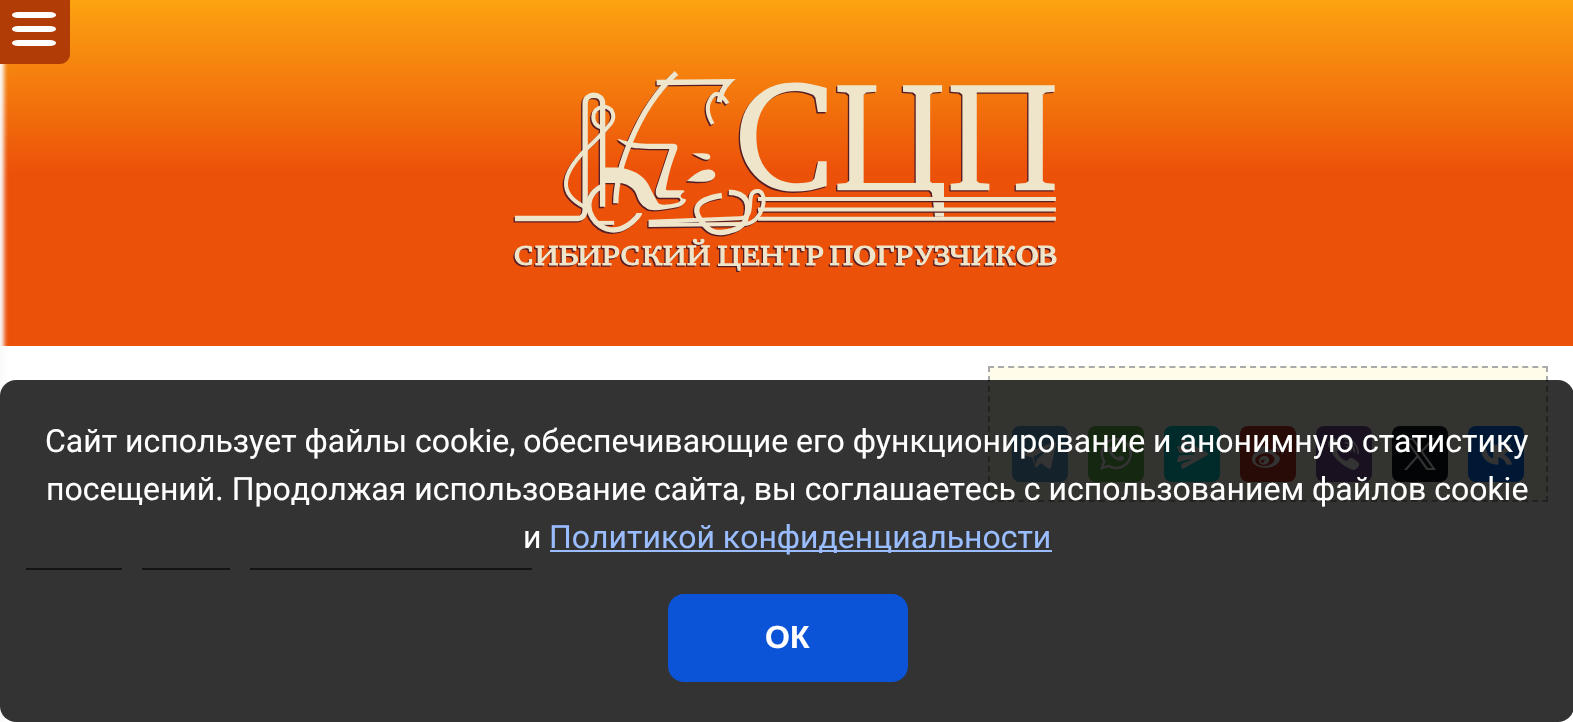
#include "include/core/SkBlurTypes.h"
#include "include/core/SkCanvas.h"
#include "include/core/SkData.h"
#include "include/core/SkFont.h"
#include "include/core/SkFontMgr.h"
#include "include/core/SkImage.h"
#include "include/core/SkMaskFilter.h"
#include "include/core/SkPaint.h"
#include "include/core/SkPathBuilder.h"
#include "include/core/SkTextBlob.h"
#include "include/effects/SkDashPathEffect.h"
#include "include/effects/SkGradientShader.h"
#include "include/utils/SkParsePath.h"

extern sk_sp<SkFontMgr> fontMgr;

void draw(SkCanvas* canvas) {
  SkPaint p;
  p.setAntiAlias(true);
  canvas->clear(SK_ColorWHITE);
  {
    const SkColor colors[] = {SkColorSetRGB(236, 81, 9), SkColorSetRGB(236, 81, 9), SkColorSetRGB(252, 163, 17)};
    const float stops[] = {0, 0.5f, 1};
    const SkPoint ends[] = {{787, 346}, {787, 0}};
    p.setShader(SkGradientShader::MakeLinear(ends, colors, stops, 3, SkTileMode::kClamp));
    p.setAlpha(255);
  }
  canvas->drawRect(SkRect::MakeLTRB(0, 0, 1573, 346), p);
  canvas->drawImageRect(SkImages::DeferredFromEncodedData(SkData::MakeFromFileName("images/1.png")), SkRect::MakeLTRB(513, 71, 1057, 272), SkSamplingOptions());
  p.setShader(nullptr);
  p.setColor(SkColorSetRGB(255, 252, 233));
  canvas->drawRect(SkRect::MakeLTRB(988, 366, 1548, 502), p);
  p.setStyle(SkPaint::kStroke_Style);
  p.setStrokeWidth(2);
  p.setColor(SkColorSetRGB(170, 170, 170));
  p.setPathEffect(SkDashPathEffect::Make({{6, 4.08f}}, 0));
  canvas->drawPath(SkPathBuilder().moveTo(988, 367).lineTo(1548, 367).detach(), p);
  p.setPathEffect(nullptr);
  p.setPathEffect(SkDashPathEffect::Make({{6, 4}}, 0));
  canvas->drawPath(SkPathBuilder().moveTo(1547, 366).lineTo(1547, 502).detach(), p);
  p.setPathEffect(nullptr);
  p.setPathEffect(SkDashPathEffect::Make({{6, 4.08f}}, 0));
  canvas->drawPath(SkPathBuilder().moveTo(988, 501).lineTo(1548, 501).detach(), p);
  p.setPathEffect(nullptr);
  p.setPathEffect(SkDashPathEffect::Make({{6, 4}}, 0));
  canvas->drawPath(SkPathBuilder().moveTo(989, 366).lineTo(989, 502).detach(), p);
  p.setPathEffect(nullptr);
  p.setStyle(SkPaint::kFill_Style);
  p.setColor(SkColorSetRGB(100, 169, 220));
  canvas->drawRoundRect(SkRect::MakeLTRB(1012, 426, 1068, 482), 8, 8, p);
  canvas->drawImageRect(SkImages::DeferredFromEncodedData(SkData::MakeFromFileName("images/2.png")), SkRect::MakeLTRB(1024, 442, 1056, 469), SkSamplingOptions());
  p.setColor(SkColorSetRGB(101, 188, 84));
  canvas->drawRoundRect(SkRect::MakeLTRB(1088, 426, 1144, 482), 8, 8, p);
  canvas->drawImageRect(SkImages::DeferredFromEncodedData(SkData::MakeFromFileName("images/3.png")), SkRect::MakeLTRB(1100, 438, 1132, 470), SkSamplingOptions());
  p.setColor(SkColorSetRGB(3, 206, 206));
  canvas->drawRoundRect(SkRect::MakeLTRB(1164, 426, 1220, 482), 8, 8, p);
  canvas->drawImageRect(SkImages::DeferredFromEncodedData(SkData::MakeFromFileName("images/4.png")), SkRect::MakeLTRB(1177, 439, 1208, 469), SkSamplingOptions());
  p.setColor(SkColorSetRGB(197, 50, 32));
  canvas->drawRoundRect(SkRect::MakeLTRB(1240, 426, 1296, 482), 8, 8, p);
  canvas->drawImageRect(SkImages::DeferredFromEncodedData(SkData::MakeFromFileName("images/5.png")), SkRect::MakeLTRB(1252, 442, 1284, 468), SkSamplingOptions());
  p.setColor(SkColorSetRGB(123, 81, 157));
  canvas->drawRoundRect(SkRect::MakeLTRB(1316, 426, 1372, 482), 8, 8, p);
  canvas->drawImageRect(SkImages::DeferredFromEncodedData(SkData::MakeFromFileName("images/6.png")), SkRect::MakeLTRB(1328, 438, 1360, 470), SkSamplingOptions());
  p.setColor(SkColorSetRGB(15, 20, 25));
  canvas->drawRoundRect(SkRect::MakeLTRB(1392, 426, 1448, 482), 8, 8, p);
  canvas->drawImageRect(SkImages::DeferredFromEncodedData(SkData::MakeFromFileName("images/7.png")), SkRect::MakeLTRB(1404, 438, 1436, 470), SkSamplingOptions());
  p.setColor(SkColorSetRGB(0, 119, 255));
  canvas->drawRoundRect(SkRect::MakeLTRB(1468, 426, 1524, 482), 8, 8, p);
  canvas->drawImageRect(SkImages::DeferredFromEncodedData(SkData::MakeFromFileName("images/8.png")), SkRect::MakeLTRB(1480, 444, 1513, 465), SkSamplingOptions());
  p.setColor(SkColorSetRGB(102, 102, 102));
  canvas->drawRect(SkRect::MakeLTRB(26, 568, 122, 570), p);
  canvas->drawRect(SkRect::MakeLTRB(142, 568, 230, 570), p);
  canvas->drawRect(SkRect::MakeLTRB(250, 568, 532, 570), p);
  p.setColor(SkColorSetRGB(250, 250, 250));
  p.setMaskFilter(SkMaskFilter::MakeBlur(kNormal_SkBlurStyle, 2));
  canvas->drawRect(SkRect::MakeLTRB(-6, -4, 4, 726), p);
  p.setMaskFilter(nullptr);
  p.setColor(SkColorSetRGB(177, 60, 6));
  canvas->drawPath(SkPathBuilder().moveTo(0, 0).lineTo(70, 0).lineTo(70, 54).cubicTo(70, 59.5f, 65.5f, 64, 60, 64).lineTo(0, 64).close().detach(), p);
  canvas->drawImageRect(SkImages::DeferredFromEncodedData(SkData::MakeFromFileName("images/9.png")), SkRect::MakeLTRB(12, 12, 56, 46), SkSamplingOptions());
  p.setColor(SkColorSetARGB(204, 0, 0, 0));
  canvas->drawRoundRect(SkRect::MakeLTRB(0, 380, 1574, 722), 16, 16, p);
  p.setColor(SkColorSetRGB(153, 189, 255));
  canvas->drawRect(SkRect::MakeLTRB(550, 550, 1052, 552), p);
  p.setColor(SkColorSetARGB(204, 0, 91, 255));
  canvas->drawRoundRect(SkRect::MakeLTRB(668, 594, 908, 682), 16, 16, p);
  SkFont font1(fontMgr->matchFamilyStyle("Roboto", SkFontStyle::Normal()), 32);
  font1.setSubpixel(true);
  p.setColor(SK_ColorWHITE);
  canvas->drawString("Сайт использует файлы cookie, обеспечивающие его функционирование и анонимную статистику", 45, 452, font1, p);
  canvas->drawString("посещений. Продолжая использование сайта, вы соглашаетесь с использованием файлов cookie", 46, 500, font1, p);
  canvas->drawString("и", 523, 548, font1, p);
  p.setColor(SkColorSetRGB(153, 189, 255));
  canvas->drawString("Политикой конфиденциальности", 549, 548, font1, p);
  SkFont font2(fontMgr->matchFamilyStyle("Liberation Sans", SkFontStyle::Bold()), 32);
  font2.setSubpixel(true);
  p.setColor(SK_ColorWHITE);
  canvas->drawString("ОК", 765, 648, font2, p);
}
